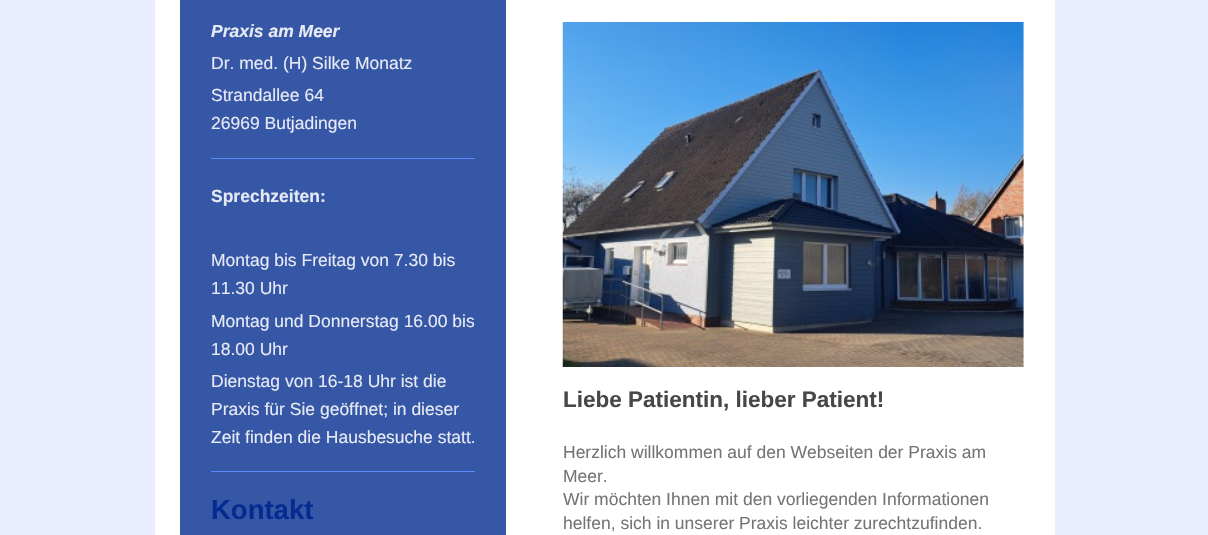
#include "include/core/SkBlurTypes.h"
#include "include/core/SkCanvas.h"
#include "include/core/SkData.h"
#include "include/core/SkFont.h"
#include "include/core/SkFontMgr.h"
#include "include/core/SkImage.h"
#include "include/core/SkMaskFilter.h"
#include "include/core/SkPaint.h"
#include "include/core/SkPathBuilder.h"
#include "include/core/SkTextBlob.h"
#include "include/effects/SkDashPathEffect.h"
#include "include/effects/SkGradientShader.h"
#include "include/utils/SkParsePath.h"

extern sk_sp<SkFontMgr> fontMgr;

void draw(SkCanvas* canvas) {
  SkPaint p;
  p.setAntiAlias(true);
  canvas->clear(SkColorSetRGB(232, 238, 255));
  p.setColor(SK_ColorWHITE);
  canvas->drawRect(SkRect::MakeLTRB(155, 0, 1055, 535), p);
  p.setColor(SkColorSetRGB(54, 86, 166));
  canvas->drawRect(SkRect::MakeLTRB(180, 0, 506, 535), p);
  p.setColor(SkColorSetRGB(94, 136, 255));
  canvas->drawRect(SkRect::MakeLTRB(211, 158, 475, 159), p);
  canvas->drawRect(SkRect::MakeLTRB(211, 471, 475, 472), p);
  canvas->drawImageRect(SkImages::DeferredFromEncodedData(SkData::MakeFromFileName("images/1.png")), SkRect::MakeLTRB(562, 22, 1024, 367), SkSamplingOptions());
  SkFont font1(fontMgr->matchFamilyStyle("Liberation Sans", SkFontStyle::BoldItalic()), 17.5f);
  font1.setSubpixel(true);
  p.setColor(SkColorSetRGB(230, 234, 244));
  canvas->drawString("Praxis am Meer", 211, 37, font1, p);
  SkFont font2(fontMgr->matchFamilyStyle("Liberation Sans", SkFontStyle::Normal()), 17.5f);
  font2.setSubpixel(true);
  canvas->drawString("Dr. med. (H) Silke Monatz", 211, 69, font2, p);
  canvas->drawString("Strandallee 64", 211, 101, font2, p);
  canvas->drawString("26969 Butjadingen", 211, 129, font2, p);
  SkFont font3(fontMgr->matchFamilyStyle("Liberation Sans", SkFontStyle::Bold()), 17.5f);
  font3.setSubpixel(true);
  canvas->drawString("Sprechzeiten:", 211, 202, font3, p);
  canvas->drawString("Montag bis Freitag von 7.30 bis", 211, 266, font2, p);
  canvas->drawString("11.30 Uhr", 211, 294, font2, p);
  canvas->drawString("Montag und Donnerstag 16.00 bis", 211, 327, font2, p);
  canvas->drawString("18.00 Uhr", 211, 355, font2, p);
  canvas->drawString("Dienstag von 16-18 Uhr ist die", 211, 387, font2, p);
  canvas->drawString("Praxis für Sie geöffnet; in dieser", 211, 415, font2, p);
  canvas->drawString("Zeit finden die Hausbesuche statt.", 211, 443, font2, p);
  SkFont font4(fontMgr->matchFamilyStyle("Liberation Sans", SkFontStyle::Bold()), 27.5f);
  font4.setSubpixel(true);
  p.setColor(SkColorSetRGB(4, 43, 144));
  canvas->drawString("Kontakt", 211, 519, font4, p);
  SkFont font5(fontMgr->matchFamilyStyle("Liberation Sans", SkFontStyle::Bold()), 22.5f);
  font5.setSubpixel(true);
  p.setColor(SkColorSetRGB(71, 71, 71));
  canvas->drawString("Liebe Patientin, lieber Patient!", 563, 407, font5, p);
  p.setColor(SkColorSetRGB(117, 117, 117));
  canvas->drawString("Herzlich willkommen auf den Webseiten der Praxis am", 563, 458, font2, p);
  canvas->drawString("Meer.", 563, 482, font2, p);
  canvas->drawString("Wir möchten Ihnen mit den vorliegenden Informationen", 563, 505, font2, p);
  canvas->drawString("helfen, sich in unserer Praxis leichter zurechtzufinden.", 563, 529, font2, p);
}
